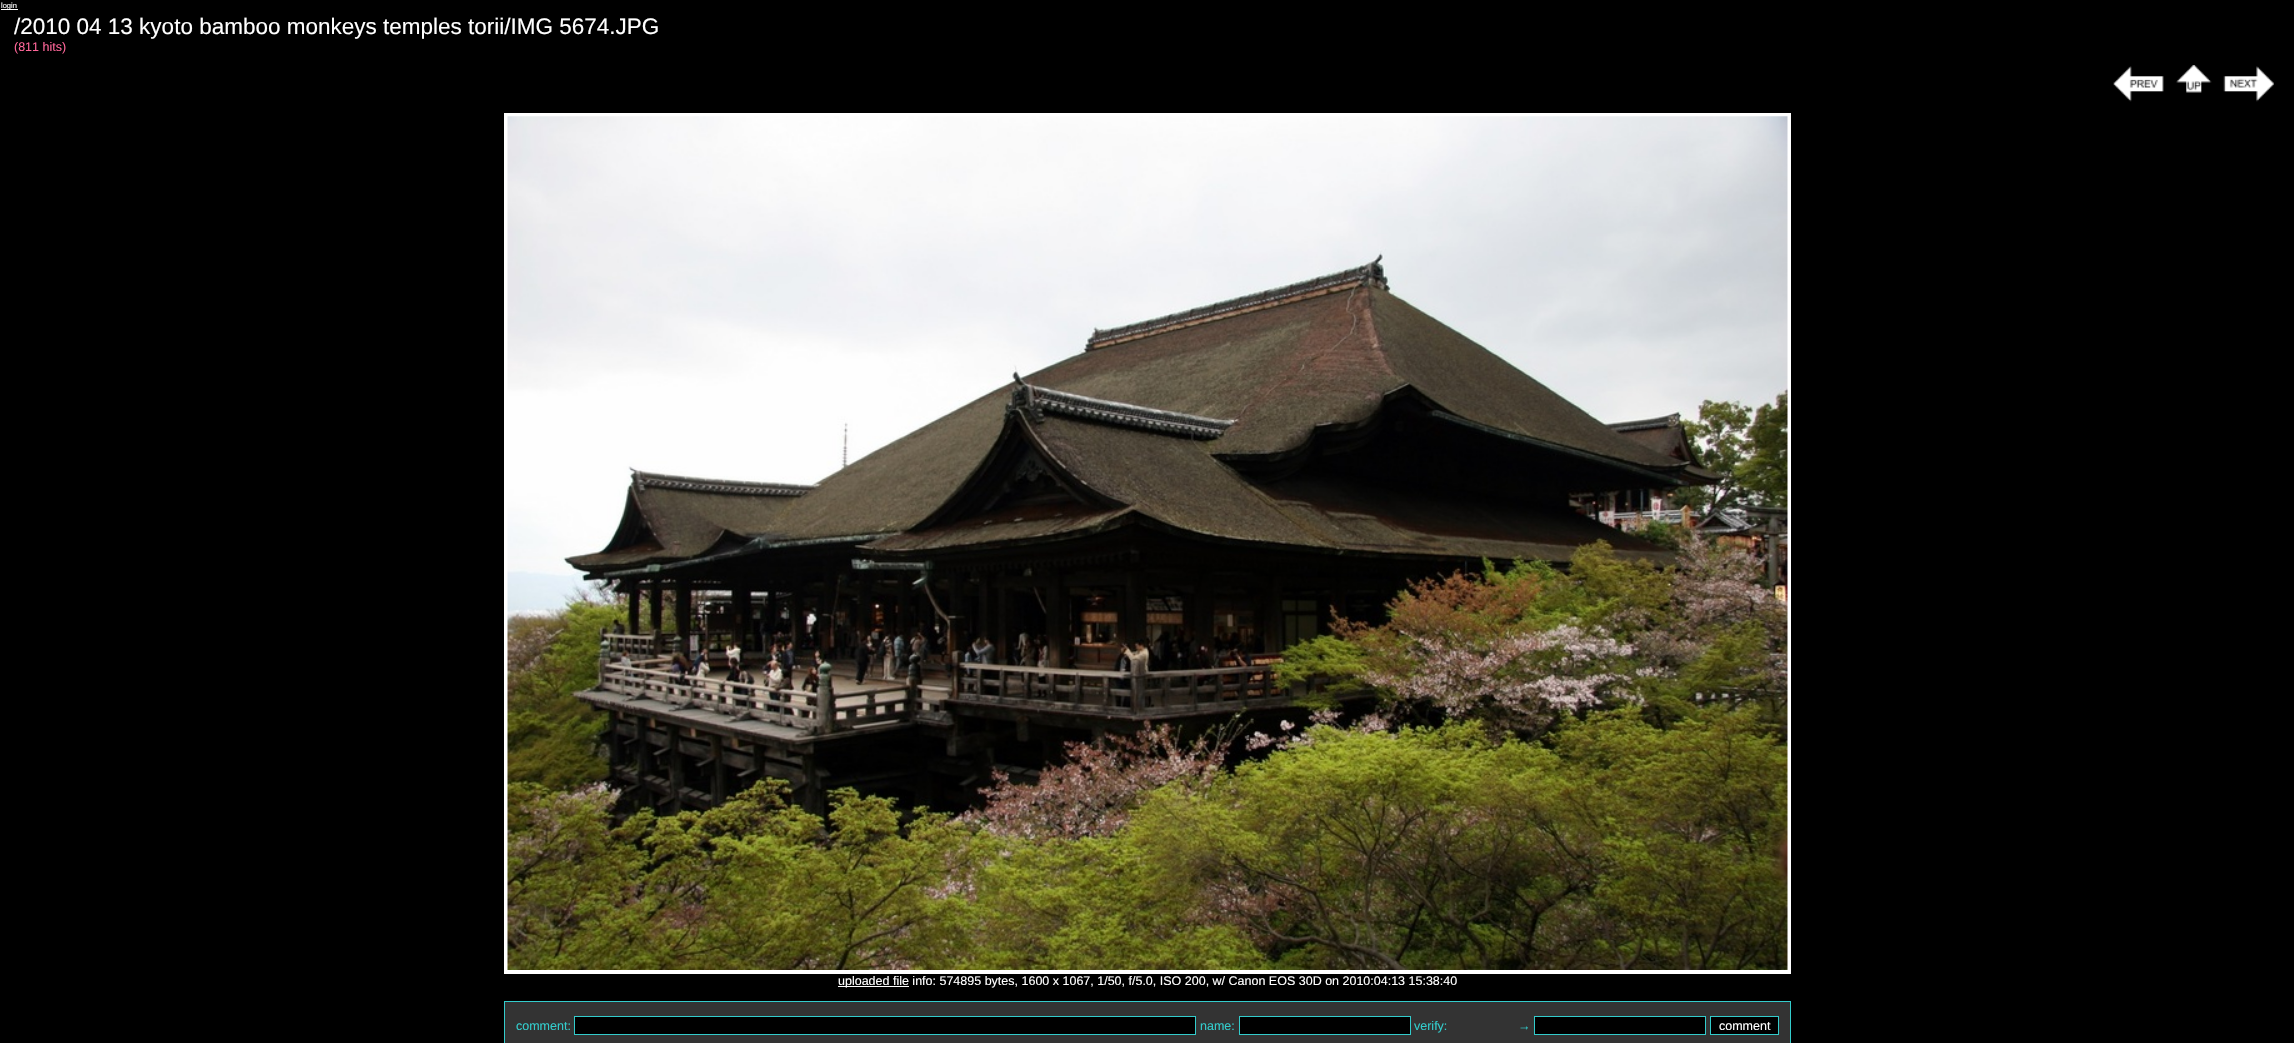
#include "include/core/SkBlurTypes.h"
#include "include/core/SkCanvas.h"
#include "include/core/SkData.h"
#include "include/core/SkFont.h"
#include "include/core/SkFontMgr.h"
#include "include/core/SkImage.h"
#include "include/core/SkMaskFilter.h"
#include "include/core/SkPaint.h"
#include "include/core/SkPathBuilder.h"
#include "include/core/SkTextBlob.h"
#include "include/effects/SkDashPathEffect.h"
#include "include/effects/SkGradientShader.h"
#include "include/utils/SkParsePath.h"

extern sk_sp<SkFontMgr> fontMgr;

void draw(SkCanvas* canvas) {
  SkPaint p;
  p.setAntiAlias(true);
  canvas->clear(SK_ColorBLACK);
  p.setColor(SK_ColorWHITE);
  canvas->drawRect(SkRect::MakeLTRB(1, 9, 18, 10), p);
  canvas->drawImageRect(SkImages::DeferredFromEncodedData(SkData::MakeFromFileName("images/1.png")), SkRect::MakeLTRB(2113, 66, 2164, 102), SkSamplingOptions());
  canvas->drawImageRect(SkImages::DeferredFromEncodedData(SkData::MakeFromFileName("images/2.png")), SkRect::MakeLTRB(2176, 65, 2212, 93), SkSamplingOptions());
  canvas->drawImageRect(SkImages::DeferredFromEncodedData(SkData::MakeFromFileName("images/3.png")), SkRect::MakeLTRB(2223, 66, 2274, 102), SkSamplingOptions());
  p.setStyle(SkPaint::kStroke_Style);
  p.setStrokeWidth(4);
  canvas->drawRect(SkRect::MakeLTRB(506, 115, 1789, 972), p);
  canvas->drawImageRect(SkImages::DeferredFromEncodedData(SkData::MakeFromFileName("images/4.png")), SkRect::MakeLTRB(507, 116, 1788, 970), SkSamplingOptions());
  p.setStyle(SkPaint::kFill_Style);
  canvas->drawRect(SkRect::MakeLTRB(838, 986, 909, 987), p);
  p.setColor(SkColorSetRGB(51, 51, 51));
  canvas->drawRect(SkRect::MakeLTRB(504.5f, 1001.5f, 1790.5f, 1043.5f), p);
  p.setStyle(SkPaint::kStroke_Style);
  p.setStrokeWidth(1);
  p.setColor(SkColorSetRGB(51, 204, 204));
  canvas->drawRect(SkRect::MakeLTRB(504.5f, 1001.5f, 1790.5f, 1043.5f), p);
  p.setStyle(SkPaint::kFill_Style);
  p.setColor(SK_ColorBLACK);
  canvas->drawRect(SkRect::MakeLTRB(574.5f, 1016.5f, 1195.5f, 1034.5f), p);
  p.setStyle(SkPaint::kStroke_Style);
  p.setColor(SkColorSetRGB(51, 204, 204));
  canvas->drawRect(SkRect::MakeLTRB(574.5f, 1016.5f, 1195.5f, 1034.5f), p);
  p.setStyle(SkPaint::kFill_Style);
  p.setColor(SK_ColorBLACK);
  canvas->drawRect(SkRect::MakeLTRB(1239.5f, 1016.5f, 1410.5f, 1034.5f), p);
  p.setStyle(SkPaint::kStroke_Style);
  p.setColor(SkColorSetRGB(51, 204, 204));
  canvas->drawRect(SkRect::MakeLTRB(1239.5f, 1016.5f, 1410.5f, 1034.5f), p);
  p.setStyle(SkPaint::kFill_Style);
  p.setColor(SK_ColorBLACK);
  canvas->drawRect(SkRect::MakeLTRB(1534.5f, 1016.5f, 1705.5f, 1034.5f), p);
  p.setStyle(SkPaint::kStroke_Style);
  p.setColor(SkColorSetRGB(51, 204, 204));
  canvas->drawRect(SkRect::MakeLTRB(1534.5f, 1016.5f, 1705.5f, 1034.5f), p);
  p.setStyle(SkPaint::kFill_Style);
  p.setColor(SK_ColorBLACK);
  canvas->drawRect(SkRect::MakeLTRB(1710.5f, 1016.5f, 1778.5f, 1034.5f), p);
  p.setStyle(SkPaint::kStroke_Style);
  p.setColor(SkColorSetRGB(51, 204, 204));
  canvas->drawRect(SkRect::MakeLTRB(1710.5f, 1016.5f, 1778.5f, 1034.5f), p);
  SkFont font1(fontMgr->matchFamilyStyle("Liberation Sans", SkFontStyle::Normal()), 7.5f);
  font1.setSubpixel(true);
  p.setStyle(SkPaint::kFill_Style);
  p.setColor(SK_ColorWHITE);
  canvas->drawString("login", 1, 8, font1, p);
  SkFont font2(fontMgr->matchFamilyStyle("Liberation Sans", SkFontStyle::Normal()), 22.5f);
  font2.setSubpixel(true);
  canvas->drawString("/2010 04 13 kyoto bamboo monkeys temples torii/IMG 5674.JPG", 14, 34, font2, p);
  SkFont font3(fontMgr->matchFamilyStyle("Liberation Sans", SkFontStyle::Normal()), 12.5f);
  font3.setSubpixel(true);
  p.setColor(SkColorSetRGB(255, 102, 153));
  canvas->drawString("(811 hits)", 14, 51, font3, p);
  p.setColor(SK_ColorWHITE);
  canvas->drawString("uploaded file info: 574895 bytes, 1600 x 1067, 1/50, f/5.0, ISO 200, w/ Canon EOS 30D on 2010:04:13 15:38:40", 838, 985, font3, p);
  p.setColor(SkColorSetRGB(51, 204, 204));
  canvas->drawString("comment:", 516, 1030, font3, p);
  canvas->drawString("name:", 1200, 1030, font3, p);
  canvas->drawString("verify:", 1414, 1030, font3, p);
  canvas->drawString("→", 1518, 1030, font3, p);
  p.setColor(SK_ColorWHITE);
  canvas->drawString("comment", 1719, 1030, font3, p);
}
